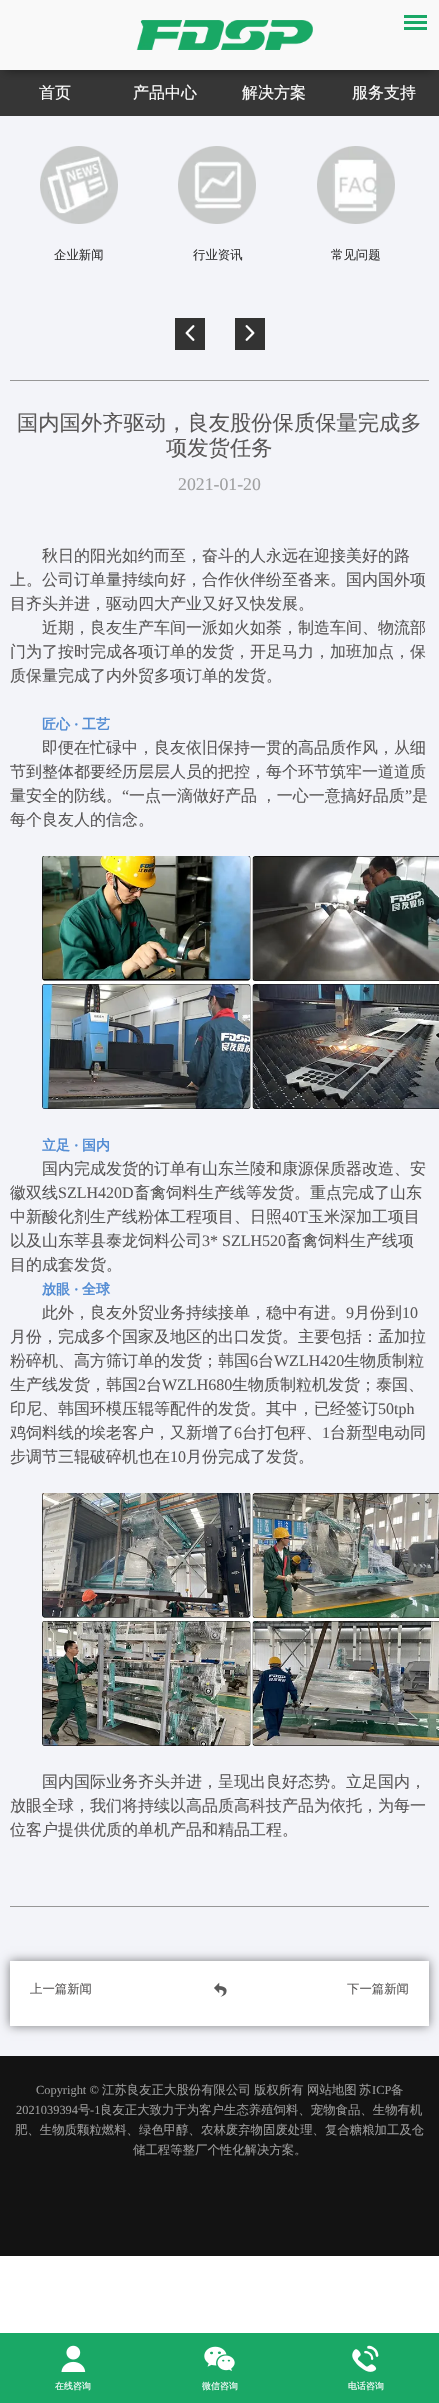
#include "include/core/SkBlurTypes.h"
#include "include/core/SkCanvas.h"
#include "include/core/SkData.h"
#include "include/core/SkFont.h"
#include "include/core/SkFontMgr.h"
#include "include/core/SkImage.h"
#include "include/core/SkMaskFilter.h"
#include "include/core/SkPaint.h"
#include "include/core/SkPathBuilder.h"
#include "include/core/SkTextBlob.h"
#include "include/effects/SkDashPathEffect.h"
#include "include/effects/SkGradientShader.h"
#include "include/utils/SkParsePath.h"

extern sk_sp<SkFontMgr> fontMgr;

void draw(SkCanvas* canvas) {
  SkPaint p;
  p.setAntiAlias(true);
  auto spacedText = [&](const char* s, float x, float y, const SkFont& font, const SkPaint& ink, float letter, float word) {
    std::vector<SkGlyphID> glyphs(font.countText(s, strlen(s), SkTextEncoding::kUTF8));
    std::vector<float> xs(glyphs.size());
    font.textToGlyphs(s, strlen(s), SkTextEncoding::kUTF8, glyphs);
    font.getXPos(glyphs, xs, x);
    float extra = 0;
    for (size_t i = 0; i < glyphs.size(); i++) {
      xs[i] += extra;
      extra += letter + word * (glyphs[i] == font.unicharToGlyph(' '));
    }
    canvas->drawTextBlob(SkTextBlob::MakeFromPosHGlyphs(glyphs, xs, y, font), 0, 0, ink);
  };
  canvas->clear(SK_ColorWHITE);
  p.setColor(SkColorSetRGB(54, 54, 54));
  canvas->drawRect(SkRect::MakeLTRB(0, 70, 439, 116), p);
  p.setColor(SkColorSetARGB(128, 0, 0, 0));
  p.setMaskFilter(SkMaskFilter::MakeBlur(kNormal_SkBlurStyle, 5));
  canvas->drawRect(SkRect::MakeLTRB(5, 10, 434, 70), p);
  p.setMaskFilter(nullptr);
  p.setColor(SkColorSetRGB(249, 249, 249));
  canvas->drawRect(SkRect::MakeLTRB(0, 0, 439, 70), p);
  canvas->drawImageRect(SkImages::DeferredFromEncodedData(SkData::MakeFromFileName("images/1.png")), SkRect::MakeLTRB(136, 20, 313, 50), SkSamplingOptions());
  p.setColor(SkColorSetRGB(26, 168, 102));
  canvas->drawRect(SkRect::MakeLTRB(404, 15, 427, 18), p);
  canvas->drawRect(SkRect::MakeLTRB(404, 21, 427, 24), p);
  canvas->drawRect(SkRect::MakeLTRB(404, 27, 427, 30), p);
  p.setColor(SkColorSetRGB(243, 244, 249));
  canvas->drawRect(SkRect::MakeLTRB(0, 116, 439, 2056), p);
  canvas->drawImageRect(SkImages::DeferredFromEncodedData(SkData::MakeFromFileName("images/2.png")), SkRect::MakeLTRB(40, 146, 118, 224), SkSamplingOptions());
  canvas->drawImageRect(SkImages::DeferredFromEncodedData(SkData::MakeFromFileName("images/3.png")), SkRect::MakeLTRB(178, 146, 256, 224), SkSamplingOptions());
  canvas->drawImageRect(SkImages::DeferredFromEncodedData(SkData::MakeFromFileName("images/4.png")), SkRect::MakeLTRB(317, 146, 395, 224), SkSamplingOptions());
  p.setColor(SkColorSetRGB(51, 51, 51));
  canvas->drawRect(SkRect::MakeLTRB(175, 318, 205, 350), p);
  canvas->drawImageRect(SkImages::DeferredFromEncodedData(SkData::MakeFromFileName("images/5.png")), SkRect::MakeLTRB(185, 325, 195, 341), SkSamplingOptions());
  canvas->drawRect(SkRect::MakeLTRB(235, 318, 265, 350), p);
  canvas->drawImageRect(SkImages::DeferredFromEncodedData(SkData::MakeFromFileName("images/6.png")), SkRect::MakeLTRB(245, 325, 255, 341), SkSamplingOptions());
  p.setColor(SkColorSetRGB(151, 151, 151));
  canvas->drawRect(SkRect::MakeLTRB(10, 380, 429, 381), p);
  canvas->drawRect(SkRect::MakeLTRB(10, 1906, 429, 1907), p);
  canvas->drawImageRect(SkImages::DeferredFromEncodedData(SkData::MakeFromFileName("images/7.png")), SkRect::MakeLTRB(42, 856, 439, 1109), SkSamplingOptions());
  canvas->drawImageRect(SkImages::DeferredFromEncodedData(SkData::MakeFromFileName("images/8.png")), SkRect::MakeLTRB(42, 1493, 439, 1746), SkSamplingOptions());
  p.setColor(SkColorSetARGB(128, 0, 0, 0));
  p.setMaskFilter(SkMaskFilter::MakeBlur(kNormal_SkBlurStyle, 5));
  canvas->drawRect(SkRect::MakeLTRB(10, 1961, 429, 2026), p);
  p.setMaskFilter(nullptr);
  p.setColor(SK_ColorWHITE);
  canvas->drawRect(SkRect::MakeLTRB(10, 1961, 429, 2026), p);
  canvas->drawImageRect(SkImages::DeferredFromEncodedData(SkData::MakeFromFileName("images/9.png")), SkRect::MakeLTRB(214, 1982, 227, 1997), SkSamplingOptions());
  p.setColor(SkColorSetRGB(19, 19, 19));
  canvas->drawRect(SkRect::MakeLTRB(0, 2056, 439, 2256), p);
  p.setColor(SkColorSetRGB(26, 168, 102));
  canvas->drawRect(SkRect::MakeLTRB(0, 2333, 439, 2403), p);
  canvas->drawImageRect(SkImages::DeferredFromEncodedData(SkData::MakeFromFileName("images/10.png")), SkRect::MakeLTRB(61, 2345, 86, 2372), SkSamplingOptions());
  canvas->drawImageRect(SkImages::DeferredFromEncodedData(SkData::MakeFromFileName("images/11.png")), SkRect::MakeLTRB(204, 2346, 235, 2371), SkSamplingOptions());
  canvas->drawImageRect(SkImages::DeferredFromEncodedData(SkData::MakeFromFileName("images/12.png")), SkRect::MakeLTRB(352, 2345, 379, 2372), SkSamplingOptions());
  SkFont font1(fontMgr->matchFamilyStyle("WenQuanYi Zen Hei", SkFontStyle(500, SkFontStyle::kNormal_Width, SkFontStyle::kUpright_Slant)), 16);
  font1.setSubpixel(true);
  p.setColor(SK_ColorWHITE);
  canvas->drawString("首页", 39, 98, font1, p);
  canvas->drawString("产品中心", 133, 98, font1, p);
  canvas->drawString("解决方案", 242, 98, font1, p);
  canvas->drawString("服务支持", 352, 98, font1, p);
  SkFont font2(fontMgr->matchFamilyStyle("WenQuanYi Zen Hei", SkFontStyle(500, SkFontStyle::kNormal_Width, SkFontStyle::kUpright_Slant)), 12.4f);
  font2.setSubpixel(true);
  p.setColor(SkColorSetRGB(51, 51, 51));
  canvas->drawString("企业新闻", 54, 259, font2, p);
  canvas->drawString("行业资讯", 193, 259, font2, p);
  canvas->drawString("常见问题", 331, 259, font2, p);
  SkFont font3(fontMgr->matchFamilyStyle("WenQuanYi Zen Hei", SkFontStyle(500, SkFontStyle::kNormal_Width, SkFontStyle::kUpright_Slant)), 21.3f);
  font3.setSubpixel(true);
  p.setColor(SkColorSetRGB(89, 87, 87));
  canvas->drawString("国内国外齐驱动，良友股份保质保量完成多", 17, 430, font3, p);
  canvas->drawString("项发货任务", 166, 455, font3, p);
  SkFont font4(fontMgr->matchFamilyStyle("Liberation Serif", SkFontStyle::Normal()), 17.75f);
  font4.setSubpixel(true);
  p.setColor(SkColorSetRGB(159, 160, 160));
  canvas->drawString("2021-01-20", 178, 490, font4, p);
  p.setColor(SkColorSetRGB(89, 87, 87));
  canvas->drawString("秋日的阳光如约而至，奋斗的人永远在迎接美好的路", 42, 561, font1, p);
  canvas->drawString("上。公司订单量持续向好，合作伙伴纷至沓来。国内国外项", 10, 585, font1, p);
  canvas->drawString("目齐头并进，驱动四大产业又好又快发展。", 10, 609, font1, p);
  canvas->drawString("近期，良友生产车间一派如火如荼，制造车间、物流部", 42, 633, font1, p);
  canvas->drawString("门为了按时完成各项订单的发货，开足马力，加班加点，保", 10, 657, font1, p);
  canvas->drawString("质保量完成了内外贸多项订单的发货。", 10, 681, font1, p);
  SkFont font5(fontMgr->matchFamilyStyle("WenQuanYi Zen Hei", SkFontStyle::Bold()), 14);
  font5.setSubpixel(true);
  p.setColor(SkColorSetRGB(84, 141, 212));
  canvas->drawString("匠心", 42, 729, font5, p);
  SkFont font6(fontMgr->matchFamilyStyle("Liberation Serif", SkFontStyle::Bold()), 14);
  font6.setSubpixel(true);
  canvas->drawString("·", 74, 729, font6, p);
  canvas->drawString("工艺", 82, 729, font5, p);
  p.setColor(SkColorSetRGB(89, 87, 87));
  canvas->drawString("即便在忙碌中，良友依旧保持一贯的高品质作风，从细", 42, 753, font1, p);
  canvas->drawString("节到整体都要经历层层人员的把控，每个环节筑牢一道道质", 10, 777, font1, p);
  canvas->drawString("量安全的防线。", 10, 801, font1, p);
  SkFont font7(fontMgr->matchFamilyStyle("Liberation Serif", SkFontStyle::Normal()), 16);
  font7.setSubpixel(true);
  canvas->drawString("“", 122, 801, font7, p);
  spacedText("一点一滴做好产品 ，一心一意搞好品质", 129, 801, font1, p, 0, -1);
  canvas->drawString("”", 405, 801, font7, p);
  canvas->drawString("是", 412, 801, font1, p);
  canvas->drawString("每个良友人的信念。", 10, 825, font1, p);
  p.setColor(SkColorSetRGB(84, 141, 212));
  canvas->drawString("立足", 42, 1150, font5, p);
  canvas->drawString("·", 74, 1150, font6, p);
  canvas->drawString("国内", 82, 1150, font5, p);
  p.setColor(SkColorSetRGB(89, 87, 87));
  canvas->drawString("国内完成发货的订单有山东兰陵和康源保质器改造、安", 42, 1174, font1, p);
  canvas->drawString("徽双线", 10, 1198, font1, p);
  canvas->drawString("SZLH420D", 58, 1198, font7, p);
  canvas->drawString("畜禽饲料生产线等发货。重点完成了山东", 134, 1198, font1, p);
  canvas->drawString("中新酸化剂生产线粉体工程项目、日照", 10, 1222, font1, p);
  canvas->drawString("40T", 282, 1222, font7, p);
  canvas->drawString("玉米深加工项目", 308, 1222, font1, p);
  canvas->drawString("以及山东莘县泰龙饲料公司", 10, 1246, font1, p);
  canvas->drawString("3* SZLH520", 202, 1246, font7, p);
  canvas->drawString("畜禽饲料生产线项", 286, 1246, font1, p);
  canvas->drawString("目的成套发货。", 10, 1270, font1, p);
  p.setColor(SkColorSetRGB(84, 141, 212));
  canvas->drawString("放眼", 42, 1294, font5, p);
  canvas->drawString("·", 74, 1294, font6, p);
  canvas->drawString("全球", 82, 1294, font5, p);
  p.setColor(SkColorSetRGB(89, 87, 87));
  canvas->drawString("此外，良友外贸业务持续接单，稳中有进。", 42, 1318, font1, p);
  canvas->drawString("9", 346, 1318, font7, p);
  canvas->drawString("月份到", 354, 1318, font1, p);
  canvas->drawString("10", 402, 1318, font7, p);
  canvas->drawString("月份，完成多个国家及地区的出口发货。主要包括：孟加拉", 10, 1342, font1, p);
  canvas->drawString("粉碎机、高方筛订单的发货；韩国", 10, 1366, font1, p);
  canvas->drawString("6", 250, 1366, font7, p);
  canvas->drawString("台", 258, 1366, font1, p);
  canvas->drawString("WZLH420", 274, 1366, font7, p);
  canvas->drawString("生物质制粒", 344, 1366, font1, p);
  canvas->drawString("生产线发货，韩国", 10, 1390, font1, p);
  canvas->drawString("2", 138, 1390, font7, p);
  canvas->drawString("台", 146, 1390, font1, p);
  canvas->drawString("WZLH680", 162, 1390, font7, p);
  canvas->drawString("生物质制粒机发货；泰国、", 232, 1390, font1, p);
  canvas->drawString("印尼、韩国环模压辊等配件的发货。其中，已经签订", 10, 1414, font1, p);
  canvas->drawString("50tph", 378, 1414, font7, p);
  canvas->drawString("鸡饲料线的埃老客户，又新增了", 10, 1438, font1, p);
  canvas->drawString("6", 234, 1438, font7, p);
  canvas->drawString("台打包秤、", 242, 1438, font1, p);
  canvas->drawString("1", 322, 1438, font7, p);
  canvas->drawString("台新型电动同", 330, 1438, font1, p);
  canvas->drawString("步调节三辊破碎机也在", 10, 1462, font1, p);
  canvas->drawString("10", 170, 1462, font7, p);
  canvas->drawString("月份完成了发货。", 186, 1462, font1, p);
  canvas->drawString("国内国际业务齐头并进，呈现出良好态势。立足国内，", 42, 1787, font1, p);
  canvas->drawString("放眼全球，我们将持续以高品质高科技产品为依托，为每一", 10, 1811, font1, p);
  canvas->drawString("位客户提供优质的单机产品和精品工程。", 10, 1835, font1, p);
  canvas->drawString("上一篇新闻", 30, 1993, font2, p);
  canvas->drawString("下一篇新闻", 347, 1993, font2, p);
  SkFont font8(fontMgr->matchFamilyStyle("Liberation Serif", SkFontStyle::Normal()), 12.4f);
  font8.setSubpixel(true);
  p.setColor(SkColorSetRGB(153, 153, 153));
  canvas->drawString("Copyright ©", 36, 2094, font8, p);
  canvas->drawString("江苏良友正大股份有限公司", 102, 2094, font2, p);
  canvas->drawString("版权所有", 254, 2094, font2, p);
  canvas->drawString("网站地图", 307, 2094, font2, p);
  canvas->drawString("苏", 359, 2094, font2, p);
  canvas->drawString("ICP", 372, 2094, font8, p);
  canvas->drawString("备", 391, 2094, font2, p);
  canvas->drawString("2021039394", 16, 2114, font8, p);
  canvas->drawString("号", 78, 2114, font2, p);
  canvas->drawString("-1", 90, 2114, font8, p);
  canvas->drawString("良友正大致力于为客户生态养殖饲料、宠物食品、生物有机", 100, 2114, font2, p);
  canvas->drawString("肥、生物质颗粒燃料、绿色甲醇、农林废弃物固废处理、复合糖粮加工及仓", 15, 2134, font2, p);
  canvas->drawString("储工程等整厂个性化解决方案。", 133, 2154, font2, p);
  SkFont font9(fontMgr->matchFamilyStyle("WenQuanYi Zen Hei", SkFontStyle(500, SkFontStyle::kNormal_Width, SkFontStyle::kUpright_Slant)), 9);
  font9.setSubpixel(true);
  p.setColor(SK_ColorWHITE);
  canvas->drawString("在线咨询", 55, 2389, font9, p);
  canvas->drawString("微信咨询", 202, 2389, font9, p);
  canvas->drawString("电话咨询", 348, 2389, font9, p);
}
